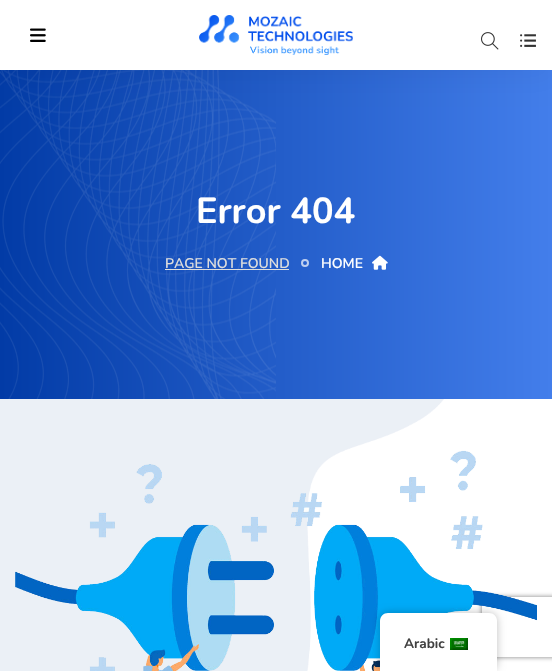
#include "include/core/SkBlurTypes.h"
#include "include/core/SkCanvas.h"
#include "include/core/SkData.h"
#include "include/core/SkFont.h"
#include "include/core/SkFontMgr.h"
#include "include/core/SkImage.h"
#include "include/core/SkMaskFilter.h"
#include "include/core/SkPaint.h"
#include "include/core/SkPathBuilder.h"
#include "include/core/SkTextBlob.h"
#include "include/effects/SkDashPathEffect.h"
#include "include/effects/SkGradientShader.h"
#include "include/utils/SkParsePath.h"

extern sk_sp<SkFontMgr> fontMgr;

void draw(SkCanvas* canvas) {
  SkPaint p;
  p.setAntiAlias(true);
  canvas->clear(SK_ColorWHITE);
  {
    const SkColor colors[] = {SkColorSetRGB(2, 59, 166), SkColorSetRGB(67, 126, 235)};
    const float stops[] = {0, 1};
    const SkPoint ends[] = {{0, 200}, {552, 199}};
    p.setShader(SkGradientShader::MakeLinear(ends, colors, stops, 2, SkTileMode::kClamp));
    p.setAlpha(255);
  }
  canvas->drawRect(SkRect::MakeLTRB(0, 70, 552, 399), p);
  canvas->drawImageRect(SkImages::DeferredFromEncodedData(SkData::MakeFromFileName("images/5.png")), SkRect::MakeLTRB(0, 70, 276, 399), SkSamplingOptions());
  p.setShader(nullptr);
  p.setColor(SkColorSetARGB(10, 0, 0, 0));
  p.setMaskFilter(SkMaskFilter::MakeBlur(kNormal_SkBlurStyle, 12.5f));
  canvas->drawRect(SkRect::MakeLTRB(0, 8, 552, 78), p);
  p.setMaskFilter(nullptr);
  p.setColor(SK_ColorWHITE);
  canvas->drawRect(SkRect::MakeLTRB(0, 0, 552, 70), p);
  canvas->drawImageRect(SkImages::DeferredFromEncodedData(SkData::MakeFromFileName("images/1.png")), SkRect::MakeLTRB(30, 28, 46, 42), SkSamplingOptions());
  canvas->drawImageRect(SkImages::DeferredFromEncodedData(SkData::MakeFromFileName("images/2.png")), SkRect::MakeLTRB(199, 15, 353, 55), SkSamplingOptions());
  canvas->drawImageRect(SkImages::DeferredFromEncodedData(SkData::MakeFromFileName("images/3.png")), SkRect::MakeLTRB(481, 32, 499, 50), SkSamplingOptions());
  canvas->drawImageRect(SkImages::DeferredFromEncodedData(SkData::MakeFromFileName("images/4.png")), SkRect::MakeLTRB(520, 34, 536, 47), SkSamplingOptions());
  p.setColor(SkColorSetRGB(221, 221, 221));
  canvas->drawRect(SkRect::MakeLTRB(165, 269, 289, 270), p);
  p.setStyle(SkPaint::kStroke_Style);
  p.setStrokeWidth(2);
  p.setColor(SkColorSetRGB(190, 207, 240));
  canvas->drawCircle(305, 263, 3, p);
  canvas->drawImageRect(SkImages::DeferredFromEncodedData(SkData::MakeFromFileName("images/6.png")), SkRect::MakeLTRB(372, 255, 388, 270), SkSamplingOptions());
  canvas->drawImageRect(SkImages::DeferredFromEncodedData(SkData::MakeFromFileName("images/7.png")), SkRect::MakeLTRB(0, 399, 444, 671), SkSamplingOptions());
  canvas->save();
  canvas->clipPath(SkPathBuilder(SkPathFillType::kEvenOdd).moveTo(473, 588).lineTo(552, 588).lineTo(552, 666).lineTo(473, 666).close().moveTo(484, 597).lineTo(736, 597).cubicTo(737, 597, 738, 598, 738, 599).lineTo(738, 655).cubicTo(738, 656, 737, 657, 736, 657).lineTo(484, 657).cubicTo(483, 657, 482, 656, 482, 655).lineTo(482, 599).cubicTo(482, 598, 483, 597, 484, 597).close().detach(), true);
  p.setStyle(SkPaint::kFill_Style);
  p.setColor(SkColorSetRGB(128, 128, 128));
  p.setMaskFilter(SkMaskFilter::MakeBlur(kNormal_SkBlurStyle, 2.5f));
  canvas->drawRoundRect(SkRect::MakeLTRB(482, 597, 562, 657), 2, 2, p);
  p.setMaskFilter(nullptr);
  canvas->restore();
  canvas->drawImageRect(SkImages::DeferredFromEncodedData(SkData::MakeFromFileName("images/8.png")), SkRect::MakeLTRB(15, 450, 537, 671), SkSamplingOptions());
  p.setColor(SkColorSetARGB(64, 0, 0, 0));
  p.setMaskFilter(SkMaskFilter::MakeBlur(kNormal_SkBlurStyle, 4));
  canvas->drawRoundRect(SkRect::MakeLTRB(380, 613, 497, 671), 8, 8, p);
  p.setMaskFilter(nullptr);
  p.setColor(SK_ColorWHITE);
  canvas->drawPath(SkPathBuilder().moveTo(388, 613).lineTo(489, 613).cubicTo(493.5f, 613, 497, 616.5f, 497, 621).lineTo(497, 671).lineTo(380, 671).lineTo(380, 621).cubicTo(380, 616.5f, 383.5f, 613, 388, 613).close().detach(), p);
  canvas->drawImageRect(SkImages::DeferredFromEncodedData(SkData::MakeFromFileName("images/9.png")), SkRect::MakeLTRB(450, 638, 468, 650), SkSamplingOptions());
  SkFont font1(fontMgr->matchFamilyStyle("Nunito", SkFontStyle::Bold()), 36);
  font1.setSubpixel(true);
  canvas->drawString("Error 404", 196, 223, font1, p);
  SkFont font2(fontMgr->matchFamilyStyle("Nunito", SkFontStyle(600, SkFontStyle::kNormal_Width, SkFontStyle::kUpright_Slant)), 14);
  font2.setSubpixel(true);
  p.setColor(SkColorSetRGB(221, 221, 221));
  canvas->drawString("PAGE NOT FOUND", 165, 268, font2, p);
  p.setColor(SK_ColorWHITE);
  canvas->drawString("HOME", 321, 268, font2, p);
  SkFont font3(fontMgr->matchFamilyStyle("Nunito", SkFontStyle::Bold()), 13.5f);
  font3.setSubpixel(true);
  p.setColor(SkColorSetRGB(64, 64, 64));
  canvas->drawString("Arabic", 404, 648, font3, p);
}
